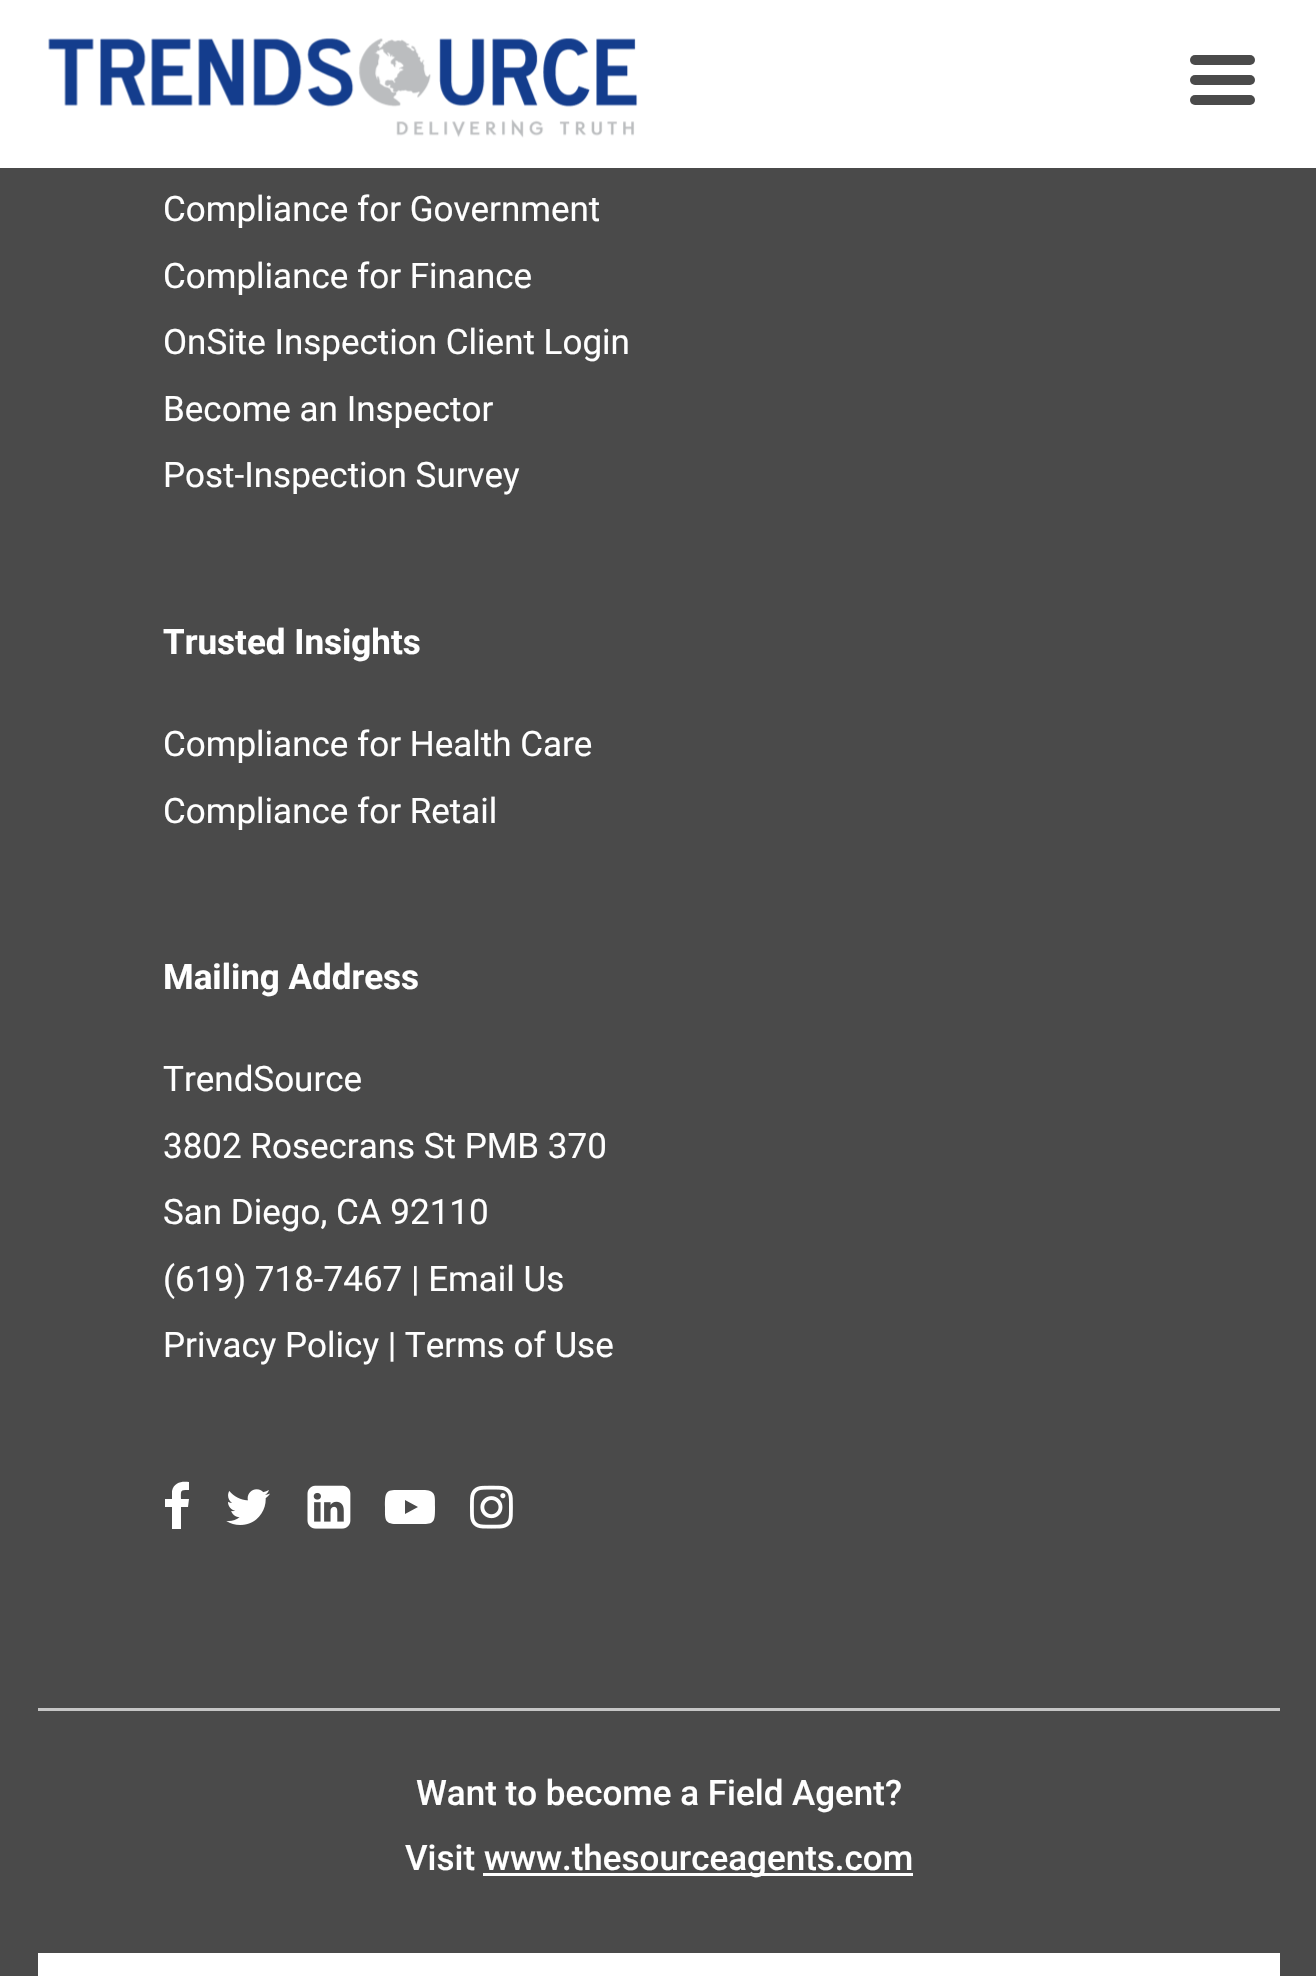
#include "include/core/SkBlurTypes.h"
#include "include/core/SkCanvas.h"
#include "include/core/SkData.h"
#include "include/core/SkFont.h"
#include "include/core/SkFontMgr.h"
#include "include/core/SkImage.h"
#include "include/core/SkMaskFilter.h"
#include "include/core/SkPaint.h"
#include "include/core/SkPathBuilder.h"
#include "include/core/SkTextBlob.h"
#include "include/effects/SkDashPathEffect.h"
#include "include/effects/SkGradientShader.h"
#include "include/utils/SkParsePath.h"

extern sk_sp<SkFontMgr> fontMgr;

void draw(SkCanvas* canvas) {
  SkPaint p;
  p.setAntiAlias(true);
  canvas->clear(SkColorSetRGB(74, 74, 74));
  p.setColor(SK_ColorWHITE);
  canvas->drawRect(SkRect::MakeLTRB(0, 0, 1316, 168), p);
  canvas->drawImageRect(SkImages::DeferredFromEncodedData(SkData::MakeFromFileName("images/1.png")), SkRect::MakeLTRB(48, 38, 638, 138), SkSamplingOptions());
  p.setColor(SkColorSetRGB(74, 74, 74));
  canvas->drawRoundRect(SkRect::MakeLTRB(1190, 55, 1255, 65), 5, 5, p);
  canvas->drawRoundRect(SkRect::MakeLTRB(1190, 75, 1255, 85), 5, 5, p);
  canvas->drawRoundRect(SkRect::MakeLTRB(1190, 95, 1255, 105), 5, 5, p);
  p.setColor(SK_ColorWHITE);
  canvas->drawPath(SkPathBuilder().moveTo(189, 1482).lineTo(189, 1490).cubicTo(180, 1490, 181, 1490, 181, 1499).lineTo(189, 1499).lineTo(188, 1507).lineTo(181, 1507).lineTo(181, 1529).lineTo(172, 1529).lineTo(172, 1507).lineTo(165, 1507).lineTo(165, 1499).lineTo(172, 1499).lineTo(172, 1491).cubicTo(174, 1482, 182, 1481, 189, 1482).close().detach(), p);
  canvas->drawImageRect(SkImages::DeferredFromEncodedData(SkData::MakeFromFileName("images/2.png")), SkRect::MakeLTRB(226, 1489, 270, 1525), SkSamplingOptions());
  canvas->drawImageRect(SkImages::DeferredFromEncodedData(SkData::MakeFromFileName("images/3.png")), SkRect::MakeLTRB(307, 1485, 351, 1529), SkSamplingOptions());
  canvas->drawPath(SkPathBuilder().moveTo(405, 1514).lineTo(418, 1507).lineTo(405, 1500).close().moveTo(410, 1490).lineTo(425, 1490).cubicTo(436, 1491, 435, 1496, 435, 1507).cubicTo(435, 1520, 435, 1524, 424, 1524).lineTo(396, 1524).cubicTo(384, 1524, 385, 1518, 385, 1507).cubicTo(385, 1494, 385, 1490, 396, 1490).close().detach(), p);
  canvas->drawImageRect(SkImages::DeferredFromEncodedData(SkData::MakeFromFileName("images/4.png")), SkRect::MakeLTRB(470, 1485, 513, 1529), SkSamplingOptions());
  p.setColor(SkColorSetRGB(198, 198, 198));
  canvas->drawRect(SkRect::MakeLTRB(38, 1708, 1280, 1711), p);
  p.setColor(SK_ColorWHITE);
  canvas->drawRect(SkRect::MakeLTRB(483, 1873, 913, 1876), p);
  canvas->drawRect(SkRect::MakeLTRB(38, 1953, 1280, 1976), p);
  SkFont font1(fontMgr->matchFamilyStyle("Roboto", SkFontStyle::Normal()), 35);
  font1.setSubpixel(true);
  canvas->drawString("Compliance for Government", 163, 221, font1, p);
  canvas->drawString("Compliance for Finance", 163, 288, font1, p);
  canvas->drawString("OnSite Inspection Client Login", 163, 354, font1, p);
  canvas->drawString("Become an Inspector", 163, 421, font1, p);
  canvas->drawString("Post-Inspection Survey", 163, 487, font1, p);
  SkFont font2(fontMgr->matchFamilyStyle("Roboto", SkFontStyle::Bold()), 35);
  font2.setSubpixel(true);
  canvas->drawString("Trusted Insights", 163, 654, font2, p);
  canvas->drawString("Compliance for Health Care", 163, 756, font1, p);
  canvas->drawString("Compliance for Retail", 163, 823, font1, p);
  canvas->drawString("Mailing Address", 163, 989, font2, p);
  canvas->drawString("TrendSource", 163, 1091, font1, p);
  canvas->drawString("3802 Rosecrans St PMB 370", 163, 1158, font1, p);
  canvas->drawString("San Diego, CA 92110", 163, 1224, font1, p);
  canvas->drawString("(619) 718-7467 | Email Us", 163, 1291, font1, p);
  canvas->drawString("Privacy Policy | Terms of Use", 163, 1357, font1, p);
  SkFont font3(fontMgr->matchFamilyStyle("Roboto", SkFontStyle(500, SkFontStyle::kNormal_Width, SkFontStyle::kUpright_Slant)), 35);
  font3.setSubpixel(true);
  canvas->drawString("Want to become a Field Agent?", 416, 1805, font3, p);
  canvas->drawString("Visit", 405, 1870, font3, p);
  canvas->drawString("www.thesourceagents.com", 484, 1870, font3, p);
}
